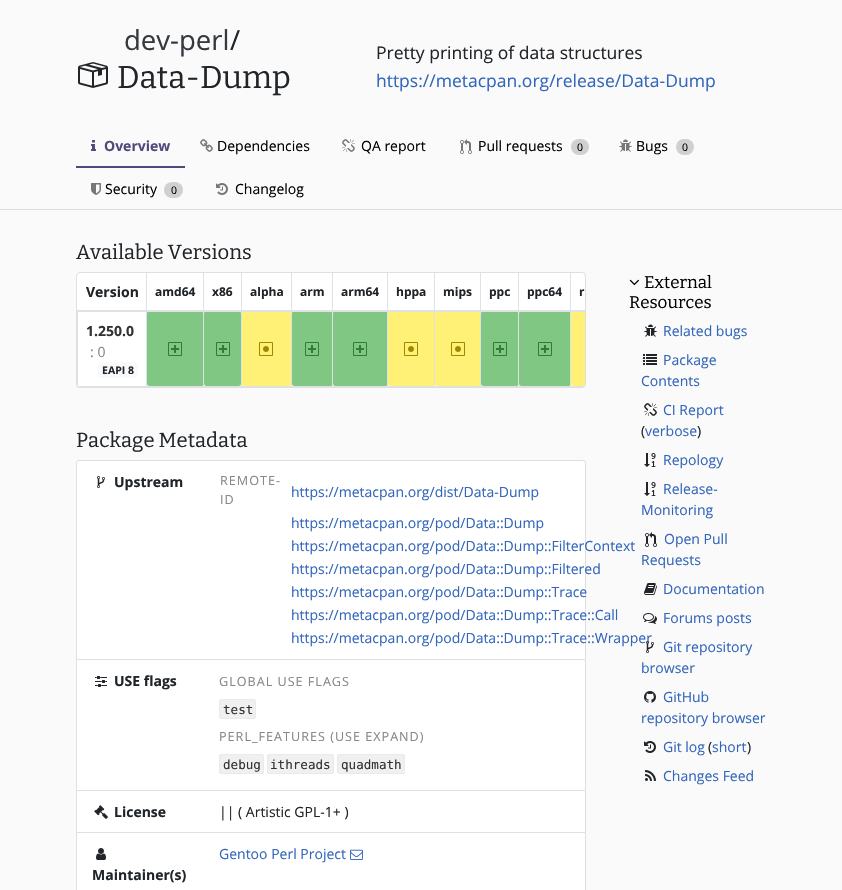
#include "include/core/SkBlurTypes.h"
#include "include/core/SkCanvas.h"
#include "include/core/SkData.h"
#include "include/core/SkFont.h"
#include "include/core/SkFontMgr.h"
#include "include/core/SkImage.h"
#include "include/core/SkMaskFilter.h"
#include "include/core/SkPaint.h"
#include "include/core/SkPathBuilder.h"
#include "include/core/SkTextBlob.h"
#include "include/effects/SkDashPathEffect.h"
#include "include/effects/SkGradientShader.h"
#include "include/utils/SkParsePath.h"

extern sk_sp<SkFontMgr> fontMgr;

void draw(SkCanvas* canvas) {
  SkPaint p;
  p.setAntiAlias(true);
  auto spacedText = [&](const char* s, float x, float y, const SkFont& font, const SkPaint& ink, float letter, float word) {
    std::vector<SkGlyphID> glyphs(font.countText(s, strlen(s), SkTextEncoding::kUTF8));
    std::vector<float> xs(glyphs.size());
    font.textToGlyphs(s, strlen(s), SkTextEncoding::kUTF8, glyphs);
    font.getXPos(glyphs, xs, x);
    float extra = 0;
    for (size_t i = 0; i < glyphs.size(); i++) {
      xs[i] += extra;
      extra += letter + word * (glyphs[i] == font.unicharToGlyph(' '));
    }
    canvas->drawTextBlob(SkTextBlob::MakeFromPosHGlyphs(glyphs, xs, y, font), 0, 0, ink);
  };
  canvas->clear(SkColorSetRGB(250, 250, 250));
  canvas->drawImageRect(SkImages::DeferredFromEncodedData(SkData::MakeFromFileName("images/1.png")), SkRect::MakeLTRB(78, 62, 108, 88), SkSamplingOptions());
  p.setColor(SkColorSetRGB(84, 72, 122));
  canvas->drawRect(SkRect::MakeLTRB(76, 166, 185, 168), p);
  canvas->drawImageRect(SkImages::DeferredFromEncodedData(SkData::MakeFromFileName("images/2.png")), SkRect::MakeLTRB(91, 140, 96, 151), SkSamplingOptions());
  canvas->drawImageRect(SkImages::DeferredFromEncodedData(SkData::MakeFromFileName("images/3.png")), SkRect::MakeLTRB(200, 139, 213, 152), SkSamplingOptions());
  canvas->drawImageRect(SkImages::DeferredFromEncodedData(SkData::MakeFromFileName("images/4.png")), SkRect::MakeLTRB(342, 139, 355, 152), SkSamplingOptions());
  canvas->drawImageRect(SkImages::DeferredFromEncodedData(SkData::MakeFromFileName("images/5.png")), SkRect::MakeLTRB(460, 139, 472, 154), SkSamplingOptions());
  p.setColor(SkColorSetRGB(208, 208, 208));
  canvas->drawRoundRect(SkRect::MakeLTRB(571, 139, 589, 155), 8, 8, p);
  canvas->drawImageRect(SkImages::DeferredFromEncodedData(SkData::MakeFromFileName("images/6.png")), SkRect::MakeLTRB(619, 139, 632, 152), SkSamplingOptions());
  canvas->drawRoundRect(SkRect::MakeLTRB(676, 139, 694, 155), 8, 8, p);
  canvas->drawImageRect(SkImages::DeferredFromEncodedData(SkData::MakeFromFileName("images/7.png")), SkRect::MakeLTRB(91, 183, 101, 195), SkSamplingOptions());
  canvas->drawRoundRect(SkRect::MakeLTRB(164, 182, 183, 198), 8, 8, p);
  canvas->drawImageRect(SkImages::DeferredFromEncodedData(SkData::MakeFromFileName("images/8.png")), SkRect::MakeLTRB(216, 183, 228, 195), SkSamplingOptions());
  p.setColor(SkColorSetRGB(221, 221, 221));
  canvas->drawRect(SkRect::MakeLTRB(0, 209, 842, 210), p);
  p.setColor(SK_ColorWHITE);
  canvas->drawRoundRect(SkRect::MakeLTRB(76.5f, 272.5f, 585.5f, 387.5f), 3.5f, 3.5f, p);
  p.setStyle(SkPaint::kStroke_Style);
  p.setStrokeWidth(1);
  p.setColor(SkColorSetRGB(223, 223, 223));
  canvas->drawRoundRect(SkRect::MakeLTRB(76.5f, 272.5f, 585.5f, 387.5f), 3.5f, 3.5f, p);
  p.setStyle(SkPaint::kFill_Style);
  p.setColor(SkColorSetRGB(222, 226, 230));
  canvas->drawRect(SkRect::MakeLTRB(570, 386, 585, 387), p);
  p.setColor(SkColorSetRGB(129, 199, 132));
  canvas->drawRoundRect(SkRect::MakeLTRB(519, 311, 571, 386), 2.5f, 2.5f, p);
  p.setColor(SkColorSetRGB(222, 226, 230));
  canvas->drawRect(SkRect::MakeLTRB(570, 273, 571, 387), p);
  canvas->drawRect(SkRect::MakeLTRB(518, 386, 571, 387), p);
  p.setColor(SkColorSetRGB(129, 199, 132));
  canvas->drawRoundRect(SkRect::MakeLTRB(481, 311, 519, 386), 2.5f, 2.5f, p);
  p.setColor(SkColorSetRGB(222, 226, 230));
  canvas->drawRect(SkRect::MakeLTRB(518, 273, 519, 387), p);
  canvas->drawRect(SkRect::MakeLTRB(480, 386, 519, 387), p);
  p.setColor(SkColorSetRGB(255, 241, 118));
  canvas->drawRoundRect(SkRect::MakeLTRB(435, 311, 481, 386), 2.5f, 2.5f, p);
  p.setColor(SkColorSetRGB(222, 226, 230));
  canvas->drawRect(SkRect::MakeLTRB(480, 273, 481, 387), p);
  canvas->drawRect(SkRect::MakeLTRB(434, 386, 481, 387), p);
  p.setColor(SkColorSetRGB(255, 241, 118));
  canvas->drawRoundRect(SkRect::MakeLTRB(388, 311, 435, 386), 2.5f, 2.5f, p);
  p.setColor(SkColorSetRGB(222, 226, 230));
  canvas->drawRect(SkRect::MakeLTRB(434, 273, 435, 387), p);
  canvas->drawRect(SkRect::MakeLTRB(387, 386, 435, 387), p);
  p.setColor(SkColorSetRGB(129, 199, 132));
  canvas->drawRoundRect(SkRect::MakeLTRB(333, 311, 388, 386), 2.5f, 2.5f, p);
  p.setColor(SkColorSetRGB(222, 226, 230));
  canvas->drawRect(SkRect::MakeLTRB(387, 273, 388, 387), p);
  canvas->drawRect(SkRect::MakeLTRB(332, 386, 388, 387), p);
  p.setColor(SkColorSetRGB(129, 199, 132));
  canvas->drawRoundRect(SkRect::MakeLTRB(292, 311, 333, 386), 2.5f, 2.5f, p);
  p.setColor(SkColorSetRGB(222, 226, 230));
  canvas->drawRect(SkRect::MakeLTRB(332, 273, 333, 387), p);
  canvas->drawRect(SkRect::MakeLTRB(291, 386, 333, 387), p);
  p.setColor(SkColorSetRGB(255, 241, 118));
  canvas->drawRoundRect(SkRect::MakeLTRB(241, 311, 292, 386), 2.5f, 2.5f, p);
  p.setColor(SkColorSetRGB(222, 226, 230));
  canvas->drawRect(SkRect::MakeLTRB(291, 273, 292, 387), p);
  canvas->drawRect(SkRect::MakeLTRB(241, 386, 292, 387), p);
  canvas->drawRect(SkRect::MakeLTRB(241, 273, 242, 387), p);
  canvas->drawRect(SkRect::MakeLTRB(203, 386, 242, 387), p);
  p.setColor(SkColorSetRGB(129, 199, 132));
  canvas->drawRoundRect(SkRect::MakeLTRB(147, 311, 204, 386), 2.5f, 2.5f, p);
  p.setColor(SkColorSetRGB(222, 226, 230));
  canvas->drawRect(SkRect::MakeLTRB(203, 273, 204, 387), p);
  canvas->drawRect(SkRect::MakeLTRB(146, 386, 204, 387), p);
  canvas->drawRect(SkRect::MakeLTRB(146, 273, 147, 387), p);
  canvas->drawRect(SkRect::MakeLTRB(77, 386, 147, 387), p);
  canvas->drawRect(SkRect::MakeLTRB(77, 311, 78, 387), p);
  p.setColor(SkColorSetRGB(129, 199, 132));
  canvas->drawRoundRect(SkRect::MakeLTRB(204, 311, 241, 386), 2.5f, 2.5f, p);
  p.setColor(SkColorSetRGB(255, 241, 118));
  canvas->drawPath(SkPathBuilder().moveTo(573.5f, 311).lineTo(585, 311).lineTo(585, 386).lineTo(573.5f, 386).cubicTo(572, 386, 571, 385, 571, 383.5f).lineTo(571, 313.5f).cubicTo(571, 312, 572, 311, 573.5f, 311).close().detach(), p);
  p.setColor(SkColorSetRGB(222, 226, 230));
  canvas->drawRect(SkRect::MakeLTRB(77, 310, 585, 312), p);
  p.setColor(SkColorSetRGB(248, 249, 250));
  canvas->drawRoundRect(SkRect::MakeLTRB(98, 362, 138, 378), 4, 4, p);
  canvas->drawImageRect(SkImages::DeferredFromEncodedData(SkData::MakeFromFileName("images/9.png")), SkRect::MakeLTRB(168, 342, 182, 356), SkSamplingOptions());
  canvas->drawImageRect(SkImages::DeferredFromEncodedData(SkData::MakeFromFileName("images/9.png")), SkRect::MakeLTRB(216, 342, 230, 356), SkSamplingOptions());
  canvas->drawImageRect(SkImages::DeferredFromEncodedData(SkData::MakeFromFileName("images/10.png")), SkRect::MakeLTRB(259, 342, 273, 356), SkSamplingOptions());
  canvas->drawImageRect(SkImages::DeferredFromEncodedData(SkData::MakeFromFileName("images/9.png")), SkRect::MakeLTRB(305, 342, 319, 356), SkSamplingOptions());
  canvas->drawImageRect(SkImages::DeferredFromEncodedData(SkData::MakeFromFileName("images/9.png")), SkRect::MakeLTRB(353, 342, 367, 356), SkSamplingOptions());
  canvas->drawImageRect(SkImages::DeferredFromEncodedData(SkData::MakeFromFileName("images/10.png")), SkRect::MakeLTRB(404, 342, 418, 356), SkSamplingOptions());
  canvas->drawImageRect(SkImages::DeferredFromEncodedData(SkData::MakeFromFileName("images/10.png")), SkRect::MakeLTRB(451, 342, 465, 356), SkSamplingOptions());
  canvas->drawImageRect(SkImages::DeferredFromEncodedData(SkData::MakeFromFileName("images/9.png")), SkRect::MakeLTRB(493, 342, 507, 356), SkSamplingOptions());
  canvas->drawImageRect(SkImages::DeferredFromEncodedData(SkData::MakeFromFileName("images/9.png")), SkRect::MakeLTRB(538, 342, 552, 356), SkSamplingOptions());
  p.setColor(SK_ColorWHITE);
  canvas->drawRoundRect(SkRect::MakeLTRB(76, 460, 586, 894), 4, 4, p);
  p.setStyle(SkPaint::kStroke_Style);
  p.setColor(SkColorSetRGB(223, 223, 223));
  canvas->drawPath(SkPathBuilder().moveTo(79, 460.5f).lineTo(583, 460.5f).cubicTo(584.5f, 460.5f, 585.5f, 461.5f, 585.5f, 463).lineTo(585.5f, 659.5f).lineTo(76.5f, 659.5f).lineTo(76.5f, 463).cubicTo(76.5f, 461.5f, 77.5f, 460.5f, 79, 460.5f).close().detach(), p);
  canvas->drawImageRect(SkImages::DeferredFromEncodedData(SkData::MakeFromFileName("images/11.png")), SkRect::MakeLTRB(97, 476, 105, 488), SkSamplingOptions());
  p.setStyle(SkPaint::kFill_Style);
  canvas->drawPath(SkPathBuilder().moveTo(586, 660).lineTo(586, 791).lineTo(585, 790).lineTo(585, 660).close().detach(), p);
  p.setColor(SkColorSetARGB(31, 0, 0, 0));
  canvas->drawPath(SkPathBuilder().moveTo(586, 791).lineTo(76, 791).lineTo(77, 790).lineTo(585, 790).close().detach(), p);
  canvas->drawPath(SkPathBuilder().moveTo(76, 791).lineTo(76, 660).lineTo(77, 660).lineTo(77, 790).close().detach(), p);
  canvas->drawImageRect(SkImages::DeferredFromEncodedData(SkData::MakeFromFileName("images/12.png")), SkRect::MakeLTRB(95, 676, 107, 687), SkSamplingOptions());
  p.setColor(SkColorSetRGB(240, 240, 240));
  canvas->drawRoundRect(SkRect::MakeLTRB(219.5f, 699.5f, 255.5f, 718.5f), 1.5f, 1.5f, p);
  p.setStyle(SkPaint::kStroke_Style);
  p.setColor(SkColorSetRGB(234, 234, 234));
  canvas->drawRoundRect(SkRect::MakeLTRB(219.5f, 699.5f, 255.5f, 718.5f), 1.5f, 1.5f, p);
  p.setStyle(SkPaint::kFill_Style);
  p.setColor(SkColorSetRGB(240, 240, 240));
  canvas->drawRoundRect(SkRect::MakeLTRB(219.5f, 754.5f, 263.5f, 773.5f), 1.5f, 1.5f, p);
  p.setStyle(SkPaint::kStroke_Style);
  p.setColor(SkColorSetRGB(234, 234, 234));
  canvas->drawRoundRect(SkRect::MakeLTRB(219.5f, 754.5f, 263.5f, 773.5f), 1.5f, 1.5f, p);
  p.setStyle(SkPaint::kFill_Style);
  p.setColor(SkColorSetRGB(240, 240, 240));
  canvas->drawRoundRect(SkRect::MakeLTRB(267.5f, 754.5f, 333.5f, 773.5f), 1.5f, 1.5f, p);
  p.setStyle(SkPaint::kStroke_Style);
  p.setColor(SkColorSetRGB(234, 234, 234));
  canvas->drawRoundRect(SkRect::MakeLTRB(267.5f, 754.5f, 333.5f, 773.5f), 1.5f, 1.5f, p);
  p.setStyle(SkPaint::kFill_Style);
  p.setColor(SkColorSetRGB(240, 240, 240));
  canvas->drawRoundRect(SkRect::MakeLTRB(337.5f, 754.5f, 404.5f, 773.5f), 1.5f, 1.5f, p);
  p.setStyle(SkPaint::kStroke_Style);
  p.setColor(SkColorSetRGB(234, 234, 234));
  canvas->drawRoundRect(SkRect::MakeLTRB(337.5f, 754.5f, 404.5f, 773.5f), 1.5f, 1.5f, p);
  p.setStyle(SkPaint::kFill_Style);
  p.setColor(SkColorSetRGB(223, 223, 223));
  canvas->drawPath(SkPathBuilder().moveTo(586, 791).lineTo(586, 833).lineTo(585, 832).lineTo(585, 791).close().detach(), p);
  p.setColor(SkColorSetARGB(31, 0, 0, 0));
  canvas->drawPath(SkPathBuilder().moveTo(586, 833).lineTo(76, 833).lineTo(77, 832).lineTo(585, 832).close().detach(), p);
  canvas->drawPath(SkPathBuilder().moveTo(76, 833).lineTo(76, 791).lineTo(77, 791).lineTo(77, 832).close().detach(), p);
  canvas->drawImageRect(SkImages::DeferredFromEncodedData(SkData::MakeFromFileName("images/13.png")), SkRect::MakeLTRB(94, 805, 108, 819), SkSamplingOptions());
  p.setColor(SkColorSetRGB(223, 223, 223));
  canvas->drawPath(SkPathBuilder(SkPathFillType::kEvenOdd).moveTo(76, 833).lineTo(586, 833).lineTo(586, 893).cubicTo(586, 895, 585, 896, 583, 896).lineTo(79, 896).cubicTo(77, 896, 76, 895, 76, 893).close().moveTo(77, 833).lineTo(585, 833).lineTo(585, 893).cubicTo(585, 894, 584, 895, 583, 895).lineTo(79, 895).cubicTo(78, 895, 77, 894, 77, 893).close().detach(), p);
  canvas->drawImageRect(SkImages::DeferredFromEncodedData(SkData::MakeFromFileName("images/14.png")), SkRect::MakeLTRB(350, 849, 363, 860), SkSamplingOptions());
  canvas->drawImageRect(SkImages::DeferredFromEncodedData(SkData::MakeFromFileName("images/15.png")), SkRect::MakeLTRB(96, 848, 106, 860), SkSamplingOptions());
  canvas->drawImageRect(SkImages::DeferredFromEncodedData(SkData::MakeFromFileName("images/16.png")), SkRect::MakeLTRB(629, 279, 639, 286), SkSamplingOptions());
  canvas->drawImageRect(SkImages::DeferredFromEncodedData(SkData::MakeFromFileName("images/17.png")), SkRect::MakeLTRB(644, 324, 657, 337), SkSamplingOptions());
  canvas->drawImageRect(SkImages::DeferredFromEncodedData(SkData::MakeFromFileName("images/18.png")), SkRect::MakeLTRB(643, 354, 657, 365), SkSamplingOptions());
  canvas->drawImageRect(SkImages::DeferredFromEncodedData(SkData::MakeFromFileName("images/19.png")), SkRect::MakeLTRB(644, 403, 657, 416), SkSamplingOptions());
  canvas->drawImageRect(SkImages::DeferredFromEncodedData(SkData::MakeFromFileName("images/20.png")), SkRect::MakeLTRB(644, 453, 656, 467), SkSamplingOptions());
  canvas->drawImageRect(SkImages::DeferredFromEncodedData(SkData::MakeFromFileName("images/20.png")), SkRect::MakeLTRB(644, 482, 656, 496), SkSamplingOptions());
  canvas->drawImageRect(SkImages::DeferredFromEncodedData(SkData::MakeFromFileName("images/21.png")), SkRect::MakeLTRB(645, 532, 657, 547), SkSamplingOptions());
  canvas->drawImageRect(SkImages::DeferredFromEncodedData(SkData::MakeFromFileName("images/22.png")), SkRect::MakeLTRB(644, 583, 657, 595), SkSamplingOptions());
  canvas->drawImageRect(SkImages::DeferredFromEncodedData(SkData::MakeFromFileName("images/23.png")), SkRect::MakeLTRB(643, 613, 657, 624), SkSamplingOptions());
  canvas->drawImageRect(SkImages::DeferredFromEncodedData(SkData::MakeFromFileName("images/25.png")), SkRect::MakeLTRB(644, 691, 656, 703), SkSamplingOptions());
  canvas->drawImageRect(SkImages::DeferredFromEncodedData(SkData::MakeFromFileName("images/26.png")), SkRect::MakeLTRB(644, 741, 656, 753), SkSamplingOptions());
  canvas->drawImageRect(SkImages::DeferredFromEncodedData(SkData::MakeFromFileName("images/27.png")), SkRect::MakeLTRB(645, 770, 656, 781), SkSamplingOptions());
  SkFont font1(fontMgr->matchFamilyStyle("Open Sans", SkFontStyle::Normal()), 27.5f);
  font1.setSubpixel(true);
  p.setColor(SkColorSetRGB(52, 58, 64));
  canvas->drawString("dev-perl", 124, 50, font1, p);
  p.setColor(SkColorSetRGB(33, 37, 41));
  canvas->drawString("/", 230, 50, font1, p);
  SkFont font2(fontMgr->matchFamilyStyle("Bitter", SkFontStyle::Normal()), 31.5f);
  font2.setSubpixel(true);
  canvas->drawString("Data-Dump", 117, 88, font2, p);
  SkFont font3(fontMgr->matchFamilyStyle("Open Sans", SkFontStyle::Normal()), 17.5f);
  font3.setSubpixel(true);
  canvas->drawString("Pretty printing of data structures", 376, 59, font3, p);
  p.setColor(SkColorSetRGB(51, 102, 187));
  canvas->drawString("https://metacpan.org/release/Data-Dump", 376, 87, font3, p);
  SkFont font4(fontMgr->matchFamilyStyle("Open Sans", SkFontStyle::Bold()), 14);
  font4.setSubpixel(true);
  p.setColor(SkColorSetRGB(84, 72, 122));
  canvas->drawString("Overview", 104, 151, font4, p);
  SkFont font5(fontMgr->matchFamilyStyle("Open Sans", SkFontStyle::Normal()), 14);
  font5.setSubpixel(true);
  p.setColor(SK_ColorBLACK);
  canvas->drawString("Dependencies", 217, 151, font5, p);
  canvas->drawString("QA report", 361, 151, font5, p);
  canvas->drawString("Pull requests", 478, 151, font5, p);
  SkFont font6(fontMgr->matchFamilyStyle("Open Sans", SkFontStyle::Normal()), 10.5f);
  font6.setSubpixel(true);
  canvas->drawString("0", 577, 151, font6, p);
  canvas->drawString("Bugs", 636, 151, font5, p);
  canvas->drawString("0", 682, 151, font6, p);
  canvas->drawString("Security", 105, 194, font5, p);
  canvas->drawString("0", 171, 194, font6, p);
  canvas->drawString("Changelog", 235, 194, font5, p);
  SkFont font7(fontMgr->matchFamilyStyle("Bitter", SkFontStyle::Normal()), 20.25f);
  font7.setSubpixel(true);
  p.setColor(SkColorSetRGB(33, 37, 41));
  canvas->drawString("Available Versions", 76, 259, font7, p);
  canvas->drawString("Version", 86, 297, font4, p);
  SkFont font8(fontMgr->matchFamilyStyle("Open Sans", SkFontStyle::Bold()), 12);
  font8.setSubpixel(true);
  canvas->drawString("amd64", 155, 296, font8, p);
  canvas->drawString("x86", 212, 296, font8, p);
  canvas->drawString("alpha", 250, 296, font8, p);
  canvas->drawString("arm", 300, 296, font8, p);
  canvas->drawString("arm64", 341, 296, font8, p);
  canvas->drawString("hppa", 396, 296, font8, p);
  canvas->drawString("mips", 443, 296, font8, p);
  canvas->drawString("ppc", 489, 296, font8, p);
  canvas->drawString("ppc64", 527, 296, font8, p);
  canvas->drawString("r", 579, 296, font8, p);
  p.setColor(SkColorSetRGB(51, 51, 51));
  canvas->drawString("1.250.0", 86, 336, font4, p);
  p.setColor(SkColorSetRGB(136, 136, 136));
  canvas->drawString(": 0", 90, 357, font5, p);
  SkFont font9(fontMgr->matchFamilyStyle("Open Sans", SkFontStyle::Bold()), 10.5f);
  font9.setSubpixel(true);
  p.setColor(SkColorSetRGB(33, 37, 41));
  canvas->drawString("EAPI 8", 102, 374, font9, p);
  canvas->drawString("Package Metadata", 76, 447, font7, p);
  canvas->drawString("Upstream", 114, 487, font4, p);
  SkFont font10(fontMgr->matchFamilyStyle("Open Sans", SkFontStyle::Normal()), 12.6f);
  font10.setSubpixel(true);
  p.setColor(SkColorSetRGB(136, 136, 136));
  spacedText("REMOTE-", 220, 485, font10, p, 1, 0);
  spacedText("ID", 220, 504, font10, p, 1, 0);
  p.setColor(SkColorSetRGB(51, 102, 187));
  canvas->drawString("https://metacpan.org/dist/Data-Dump", 291, 497, font5, p);
  canvas->drawString("https://metacpan.org/pod/Data::Dump", 291, 528, font5, p);
  canvas->drawString("https://metacpan.org/pod/Data::Dump::FilterContext", 291, 551, font5, p);
  canvas->drawString("https://metacpan.org/pod/Data::Dump::Filtered", 291, 574, font5, p);
  canvas->drawString("https://metacpan.org/pod/Data::Dump::Trace", 291, 597, font5, p);
  canvas->drawString("https://metacpan.org/pod/Data::Dump::Trace::Call", 291, 620, font5, p);
  canvas->drawString("https://metacpan.org/pod/Data::Dump::Trace::Wrapper", 291, 643, font5, p);
  p.setColor(SkColorSetRGB(33, 37, 41));
  canvas->drawString("USE flags", 114, 686, font4, p);
  p.setColor(SkColorSetRGB(136, 136, 136));
  spacedText("GLOBAL USE FLAGS", 219, 686, font10, p, 1, 0);
  SkFont font11(fontMgr->matchFamilyStyle("DejaVu Sans Mono", SkFontStyle::Normal()), 12.6f);
  font11.setSubpixel(true);
  p.setColor(SkColorSetRGB(51, 51, 51));
  canvas->drawString("test", 223, 714, font11, p);
  p.setColor(SkColorSetRGB(136, 136, 136));
  spacedText("PERL_FEATURES (USE EXPAND)", 219, 741, font10, p, 1, 0);
  p.setColor(SkColorSetRGB(51, 51, 51));
  canvas->drawString("debug", 223, 769, font11, p);
  canvas->drawString("ithreads", 270, 769, font11, p);
  canvas->drawString("quadmath", 341, 769, font11, p);
  p.setColor(SkColorSetRGB(33, 37, 41));
  canvas->drawString("License", 114, 817, font4, p);
  canvas->drawString("|| ( Artistic GPL-1+ )", 219, 817, font5, p);
  p.setColor(SkColorSetRGB(51, 102, 187));
  canvas->drawString("Gentoo Perl Project", 219, 859, font5, p);
  p.setColor(SkColorSetRGB(33, 37, 41));
  canvas->drawString("Maintainer(s)", 92, 880, font4, p);
  SkFont font12(fontMgr->matchFamilyStyle("Bitter", SkFontStyle::Normal()), 17);
  font12.setSubpixel(true);
  p.setColor(SK_ColorBLACK);
  canvas->drawString("External", 644, 288, font12, p);
  canvas->drawString("Resources", 629, 308, font12, p);
  p.setColor(SkColorSetRGB(51, 102, 187));
  canvas->drawString("Related bugs", 663, 336, font5, p);
  canvas->drawString("Package", 663, 365, font5, p);
  canvas->drawString("Contents", 641, 386, font5, p);
  canvas->drawString("CI Report", 663, 415, font5, p);
  p.setColor(SkColorSetRGB(33, 37, 41));
  canvas->drawString("(", 641, 436, font5, p);
  p.setColor(SkColorSetRGB(51, 102, 187));
  canvas->drawString("verbose", 645, 436, font5, p);
  p.setColor(SkColorSetRGB(33, 37, 41));
  canvas->drawString(")", 697, 436, font5, p);
  p.setColor(SkColorSetRGB(51, 102, 187));
  canvas->drawString("Repology", 663, 465, font5, p);
  canvas->drawString("Release-", 663, 494, font5, p);
  canvas->drawString("Monitoring", 641, 515, font5, p);
  canvas->drawString("Open Pull", 664, 544, font5, p);
  canvas->drawString("Requests", 641, 565, font5, p);
  canvas->drawString("Documentation", 663, 594, font5, p);
  canvas->drawString("Forums posts", 663, 623, font5, p);
  canvas->drawImageRect(SkImages::DeferredFromEncodedData(SkData::MakeFromFileName("images/24.png")), SkRect::MakeLTRB(646, 641, 654, 653), SkSamplingOptions());
  canvas->drawString("Git repository", 663, 652, font5, p);
  canvas->drawString("browser", 641, 673, font5, p);
  canvas->drawString("GitHub", 663, 702, font5, p);
  canvas->drawString("repository browser", 641, 723, font5, p);
  canvas->drawString("Git log", 663, 752, font5, p);
  p.setColor(SkColorSetRGB(33, 37, 41));
  canvas->drawString("(", 708, 752, font5, p);
  p.setColor(SkColorSetRGB(51, 102, 187));
  canvas->drawString("short", 712, 752, font5, p);
  p.setColor(SkColorSetRGB(33, 37, 41));
  canvas->drawString(")", 747, 752, font5, p);
  p.setColor(SkColorSetRGB(51, 102, 187));
  canvas->drawString("Changes Feed", 663, 781, font5, p);
}
